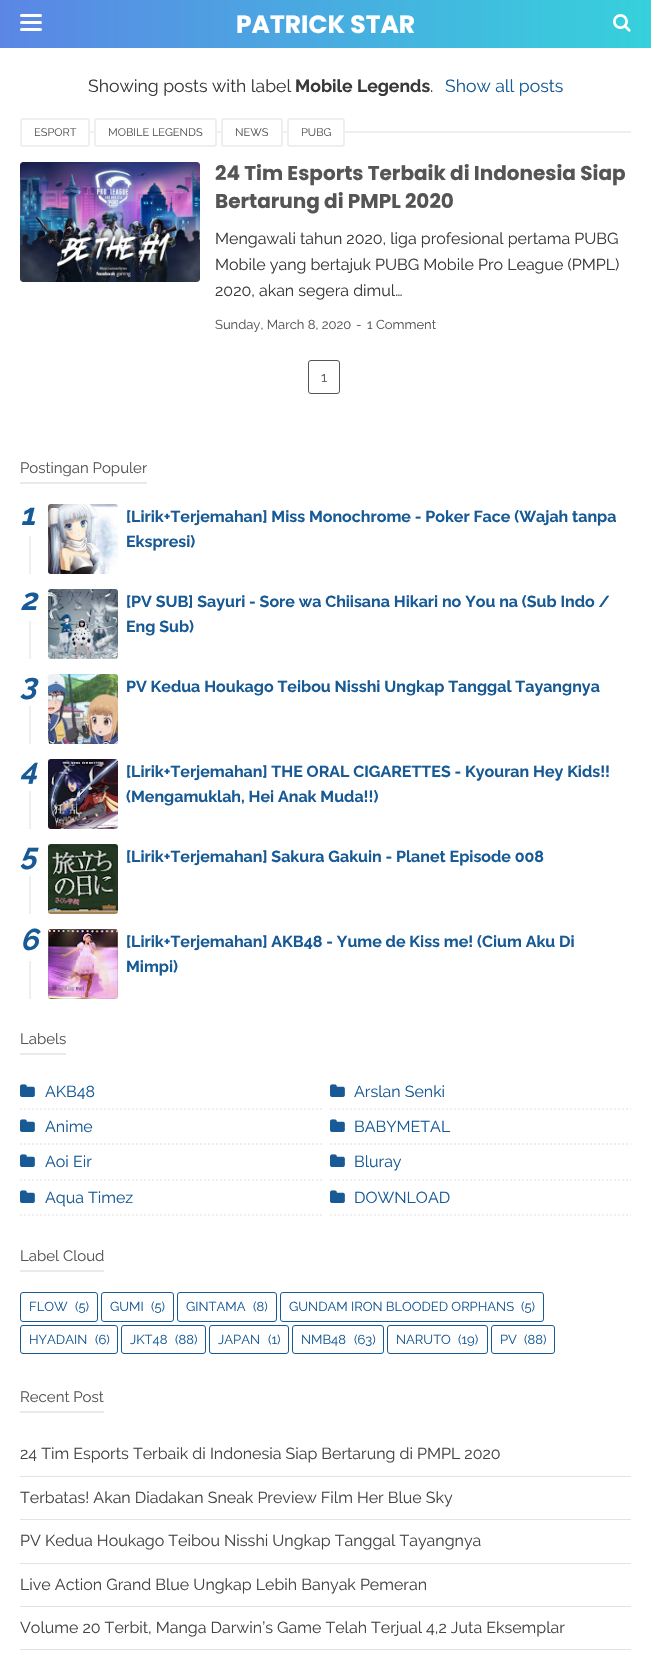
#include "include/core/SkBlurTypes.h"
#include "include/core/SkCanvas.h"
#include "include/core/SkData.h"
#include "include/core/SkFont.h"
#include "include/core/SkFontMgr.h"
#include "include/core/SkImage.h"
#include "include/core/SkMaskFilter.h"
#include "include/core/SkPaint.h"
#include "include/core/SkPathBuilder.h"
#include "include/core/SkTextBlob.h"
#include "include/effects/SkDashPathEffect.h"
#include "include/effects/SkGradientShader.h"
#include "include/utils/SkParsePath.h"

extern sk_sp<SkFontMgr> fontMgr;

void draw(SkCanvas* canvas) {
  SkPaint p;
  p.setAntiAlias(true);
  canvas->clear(SK_ColorWHITE);
  {
    const SkColor colors[] = {SkColorSetRGB(91, 134, 229), SkColorSetRGB(54, 209, 220)};
    const float stops[] = {0, 1};
    const SkPoint ends[] = {{0, 24}, {651, 24}};
    p.setShader(SkGradientShader::MakeLinear(ends, colors, stops, 2, SkTileMode::kClamp));
    p.setAlpha(255);
  }
  canvas->drawRect(SkRect::MakeLTRB(0, 0, 651, 48), p);
  p.setShader(nullptr);
  p.setColor(SK_ColorWHITE);
  canvas->drawRoundRect(SkRect::MakeLTRB(20, 14, 42, 17), 1.5f, 1.5f, p);
  canvas->drawRoundRect(SkRect::MakeLTRB(20, 21, 42, 24), 1.5f, 1.5f, p);
  canvas->drawRoundRect(SkRect::MakeLTRB(20, 28, 42, 31), 1.5f, 1.5f, p);
  canvas->drawImageRect(SkImages::DeferredFromEncodedData(SkData::MakeFromFileName("images/1.png")), SkRect::MakeLTRB(613, 14, 631, 32), SkSamplingOptions());
  p.setStyle(SkPaint::kStroke_Style);
  p.setStrokeWidth(2);
  p.setColor(SkColorSetRGB(239, 239, 239));
  canvas->drawRoundRect(SkRect::MakeLTRB(21, 119, 89, 146), 2, 2, p);
  p.setStyle(SkPaint::kFill_Style);
  canvas->drawRect(SkRect::MakeLTRB(90, 131, 631, 133), p);
  p.setColor(SK_ColorWHITE);
  canvas->drawRoundRect(SkRect::MakeLTRB(95, 119, 216, 146), 2, 2, p);
  p.setStyle(SkPaint::kStroke_Style);
  p.setColor(SkColorSetRGB(239, 239, 239));
  canvas->drawRoundRect(SkRect::MakeLTRB(95, 119, 216, 146), 2, 2, p);
  p.setStyle(SkPaint::kFill_Style);
  p.setColor(SK_ColorWHITE);
  canvas->drawRoundRect(SkRect::MakeLTRB(222, 119, 282, 146), 2, 2, p);
  p.setStyle(SkPaint::kStroke_Style);
  p.setColor(SkColorSetRGB(239, 239, 239));
  canvas->drawRoundRect(SkRect::MakeLTRB(222, 119, 282, 146), 2, 2, p);
  p.setStyle(SkPaint::kFill_Style);
  p.setColor(SK_ColorWHITE);
  canvas->drawRoundRect(SkRect::MakeLTRB(288, 119, 344, 146), 2, 2, p);
  p.setStyle(SkPaint::kStroke_Style);
  p.setColor(SkColorSetRGB(239, 239, 239));
  canvas->drawRoundRect(SkRect::MakeLTRB(288, 119, 344, 146), 2, 2, p);
  canvas->drawImageRect(SkImages::DeferredFromEncodedData(SkData::MakeFromFileName("images/2.png")), SkRect::MakeLTRB(20, 162, 200, 282), SkSamplingOptions());
  p.setStrokeWidth(1);
  p.setColor(SkColorSetRGB(85, 85, 85));
  canvas->drawRoundRect(SkRect::MakeLTRB(308.5f, 360.5f, 339.5f, 393.5f), 2.5f, 2.5f, p);
  p.setStyle(SkPaint::kFill_Style);
  p.setColor(SkColorSetRGB(234, 234, 234));
  canvas->drawRect(SkRect::MakeLTRB(20, 482, 147, 484), p);
  canvas->drawImageRect(SkImages::DeferredFromEncodedData(SkData::MakeFromFileName("images/3.png")), SkRect::MakeLTRB(48, 504, 118, 574), SkSamplingOptions());
  p.setColor(SkColorSetRGB(239, 239, 239));
  canvas->drawRect(SkRect::MakeLTRB(29, 536, 31, 574), p);
  canvas->drawImageRect(SkImages::DeferredFromEncodedData(SkData::MakeFromFileName("images/4.png")), SkRect::MakeLTRB(48, 589, 118, 659), SkSamplingOptions());
  canvas->drawRect(SkRect::MakeLTRB(29, 621, 31, 659), p);
  canvas->drawImageRect(SkImages::DeferredFromEncodedData(SkData::MakeFromFileName("images/5.png")), SkRect::MakeLTRB(48, 674, 118, 744), SkSamplingOptions());
  canvas->drawRect(SkRect::MakeLTRB(29, 706, 31, 744), p);
  canvas->drawImageRect(SkImages::DeferredFromEncodedData(SkData::MakeFromFileName("images/6.png")), SkRect::MakeLTRB(48, 759, 118, 829), SkSamplingOptions());
  canvas->drawRect(SkRect::MakeLTRB(29, 791, 31, 829), p);
  canvas->drawImageRect(SkImages::DeferredFromEncodedData(SkData::MakeFromFileName("images/7.png")), SkRect::MakeLTRB(48, 844, 118, 914), SkSamplingOptions());
  canvas->drawRect(SkRect::MakeLTRB(29, 876, 31, 914), p);
  canvas->drawImageRect(SkImages::DeferredFromEncodedData(SkData::MakeFromFileName("images/8.png")), SkRect::MakeLTRB(48, 929, 118, 999), SkSamplingOptions());
  canvas->drawRect(SkRect::MakeLTRB(29, 961, 31, 999), p);
  p.setColor(SkColorSetRGB(234, 234, 234));
  canvas->drawRect(SkRect::MakeLTRB(20, 1053, 66, 1055), p);
  p.setStyle(SkPaint::kStroke_Style);
  p.setStrokeWidth(2);
  p.setColor(SkColorSetRGB(239, 239, 239));
  p.setPathEffect(SkDashPathEffect::Make({{2, 2}}, 0));
  canvas->drawPath(SkPathBuilder().moveTo(20, 1109).lineTo(322, 1109).detach(), p);
  p.setPathEffect(nullptr);
  canvas->drawImageRect(SkImages::DeferredFromEncodedData(SkData::MakeFromFileName("images/9.png")), SkRect::MakeLTRB(20, 1084, 35, 1097), SkSamplingOptions());
  p.setPathEffect(SkDashPathEffect::Make({{2, 2}}, 0));
  canvas->drawPath(SkPathBuilder().moveTo(330, 1109).lineTo(631, 1109).detach(), p);
  p.setPathEffect(nullptr);
  canvas->drawImageRect(SkImages::DeferredFromEncodedData(SkData::MakeFromFileName("images/9.png")), SkRect::MakeLTRB(330, 1084, 345, 1097), SkSamplingOptions());
  p.setPathEffect(SkDashPathEffect::Make({{2, 2}}, 0));
  canvas->drawPath(SkPathBuilder().moveTo(20, 1144).lineTo(322, 1144).detach(), p);
  p.setPathEffect(nullptr);
  canvas->drawImageRect(SkImages::DeferredFromEncodedData(SkData::MakeFromFileName("images/9.png")), SkRect::MakeLTRB(20, 1119, 35, 1132), SkSamplingOptions());
  p.setPathEffect(SkDashPathEffect::Make({{2, 2}}, 0));
  canvas->drawPath(SkPathBuilder().moveTo(330, 1144).lineTo(631, 1144).detach(), p);
  p.setPathEffect(nullptr);
  canvas->drawImageRect(SkImages::DeferredFromEncodedData(SkData::MakeFromFileName("images/9.png")), SkRect::MakeLTRB(330, 1119, 345, 1132), SkSamplingOptions());
  p.setPathEffect(SkDashPathEffect::Make({{2, 2}}, 0));
  canvas->drawPath(SkPathBuilder().moveTo(20, 1180).lineTo(322, 1180).detach(), p);
  p.setPathEffect(nullptr);
  canvas->drawImageRect(SkImages::DeferredFromEncodedData(SkData::MakeFromFileName("images/9.png")), SkRect::MakeLTRB(20, 1154, 35, 1167), SkSamplingOptions());
  p.setPathEffect(SkDashPathEffect::Make({{2, 2}}, 0));
  canvas->drawPath(SkPathBuilder().moveTo(330, 1180).lineTo(631, 1180).detach(), p);
  p.setPathEffect(nullptr);
  canvas->drawImageRect(SkImages::DeferredFromEncodedData(SkData::MakeFromFileName("images/9.png")), SkRect::MakeLTRB(330, 1154, 345, 1167), SkSamplingOptions());
  p.setPathEffect(SkDashPathEffect::Make({{2, 2}}, 0));
  canvas->drawPath(SkPathBuilder().moveTo(20, 1215).lineTo(322, 1215).detach(), p);
  p.setPathEffect(nullptr);
  canvas->drawImageRect(SkImages::DeferredFromEncodedData(SkData::MakeFromFileName("images/9.png")), SkRect::MakeLTRB(20, 1190, 35, 1203), SkSamplingOptions());
  p.setPathEffect(SkDashPathEffect::Make({{2, 2}}, 0));
  canvas->drawPath(SkPathBuilder().moveTo(330, 1215).lineTo(631, 1215).detach(), p);
  p.setPathEffect(nullptr);
  canvas->drawImageRect(SkImages::DeferredFromEncodedData(SkData::MakeFromFileName("images/9.png")), SkRect::MakeLTRB(330, 1190, 345, 1203), SkSamplingOptions());
  p.setStyle(SkPaint::kFill_Style);
  p.setColor(SkColorSetRGB(234, 234, 234));
  canvas->drawRect(SkRect::MakeLTRB(20, 1270, 104, 1272), p);
  p.setStyle(SkPaint::kStroke_Style);
  p.setStrokeWidth(1);
  p.setColor(SkColorSetRGB(23, 90, 150));
  canvas->drawRoundRect(SkRect::MakeLTRB(20.5f, 1292.5f, 97.5f, 1321.5f), 2.5f, 2.5f, p);
  canvas->drawRoundRect(SkRect::MakeLTRB(101.5f, 1292.5f, 173.5f, 1321.5f), 2.5f, 2.5f, p);
  canvas->drawRoundRect(SkRect::MakeLTRB(177.5f, 1292.5f, 276.5f, 1321.5f), 2.5f, 2.5f, p);
  canvas->drawRoundRect(SkRect::MakeLTRB(280.5f, 1292.5f, 543.5f, 1321.5f), 2.5f, 2.5f, p);
  canvas->drawRoundRect(SkRect::MakeLTRB(20.5f, 1325.5f, 117.5f, 1353.5f), 2.5f, 2.5f, p);
  canvas->drawRoundRect(SkRect::MakeLTRB(121.5f, 1325.5f, 205.5f, 1353.5f), 2.5f, 2.5f, p);
  canvas->drawRoundRect(SkRect::MakeLTRB(209.5f, 1325.5f, 288.5f, 1353.5f), 2.5f, 2.5f, p);
  canvas->drawRoundRect(SkRect::MakeLTRB(292.5f, 1325.5f, 383.5f, 1353.5f), 2.5f, 2.5f, p);
  canvas->drawRoundRect(SkRect::MakeLTRB(387.5f, 1325.5f, 487.5f, 1353.5f), 2.5f, 2.5f, p);
  canvas->drawRoundRect(SkRect::MakeLTRB(491.5f, 1325.5f, 554.5f, 1353.5f), 2.5f, 2.5f, p);
  p.setStyle(SkPaint::kFill_Style);
  p.setColor(SkColorSetRGB(234, 234, 234));
  canvas->drawRect(SkRect::MakeLTRB(20, 1411, 104, 1413), p);
  p.setColor(SkColorSetRGB(227, 227, 227));
  canvas->drawRect(SkRect::MakeLTRB(20, 1476, 631, 1477), p);
  canvas->drawRect(SkRect::MakeLTRB(20, 1519, 631, 1520), p);
  canvas->drawRect(SkRect::MakeLTRB(20, 1563, 631, 1564), p);
  canvas->drawRect(SkRect::MakeLTRB(20, 1606, 631, 1607), p);
  canvas->drawRect(SkRect::MakeLTRB(20, 1649, 631, 1650), p);
  SkFont font1(fontMgr->matchFamilyStyle("Poppins", SkFontStyle::Bold()), 25);
  font1.setSubpixel(true);
  p.setColor(SK_ColorWHITE);
  canvas->drawString("PATRICK STAR", 236, 33, font1, p);
  SkFont font2(fontMgr->matchFamilyStyle("Raleway", SkFontStyle::Normal()), 17.6f);
  font2.setSubpixel(true);
  p.setColor(SkColorSetRGB(57, 57, 57));
  canvas->drawString("Showing posts with label", 88, 92, font2, p);
  SkFont font3(fontMgr->matchFamilyStyle("Raleway", SkFontStyle::Bold()), 17.6f);
  font3.setSubpixel(true);
  canvas->drawString("Mobile Legends", 295, 92, font3, p);
  canvas->drawString(".", 430, 92, font2, p);
  p.setColor(SkColorSetRGB(23, 90, 150));
  canvas->drawString("Show all posts", 445, 92, font2, p);
  SkFont font4(fontMgr->matchFamilyStyle("Raleway", SkFontStyle::Normal()), 11);
  font4.setSubpixel(true);
  p.setColor(SkColorSetRGB(85, 85, 85));
  canvas->drawString("ESPORT", 34, 136, font4, p);
  canvas->drawString("MOBILE LEGENDS", 108, 136, font4, p);
  canvas->drawString("NEWS", 235, 136, font4, p);
  canvas->drawString("PUBG", 301, 136, font4, p);
  SkFont font5(fontMgr->matchFamilyStyle("Poppins", SkFontStyle::Bold()), 20);
  font5.setSubpixel(true);
  canvas->drawString("24 Tim Esports Terbaik di Indonesia Siap", 215, 180, font5, p);
  canvas->drawString("Bertarung di PMPL 2020", 215, 208, font5, p);
  SkFont font6(fontMgr->matchFamilyStyle("Raleway", SkFontStyle::Normal()), 16);
  font6.setSubpixel(true);
  p.setColor(SkColorSetRGB(57, 57, 57));
  canvas->drawString("Mengawali tahun 2020, liga profesional pertama PUBG", 215, 244, font6, p);
  canvas->drawString("Mobile yang bertajuk PUBG Mobile Pro League (PMPL)", 215, 270, font6, p);
  canvas->drawString("2020, akan segera dimul…", 215, 296, font6, p);
  SkFont font7(fontMgr->matchFamilyStyle("Raleway", SkFontStyle::Normal()), 13);
  font7.setSubpixel(true);
  p.setColor(SkColorSetRGB(85, 85, 85));
  canvas->drawString("Sunday, March 8, 2020", 215, 329, font7, p);
  canvas->drawString("-", 356, 329, font7, p);
  canvas->drawString("1 Comment", 367, 329, font7, p);
  SkFont font8(fontMgr->matchFamilyStyle("Raleway", SkFontStyle::Normal()), 14);
  font8.setSubpixel(true);
  canvas->drawString("1", 321, 382, font8, p);
  SkFont font9(fontMgr->matchFamilyStyle("Raleway", SkFontStyle::Normal()), 15);
  font9.setSubpixel(true);
  canvas->drawString("Postingan Populer", 20, 473, font9, p);
  SkFont font10(fontMgr->matchFamilyStyle("Raleway", SkFontStyle::BoldItalic()), 30);
  font10.setSubpixel(true);
  p.setColor(SkColorSetRGB(23, 90, 150));
  canvas->drawString("1", 20, 525, font10, p);
  SkFont font11(fontMgr->matchFamilyStyle("Raleway", SkFontStyle::Bold()), 16);
  font11.setSubpixel(true);
  canvas->drawString("[Lirik+Terjemahan] Miss Monochrome - Poker Face (Wajah tanpa", 126, 522, font11, p);
  canvas->drawString("Ekspresi)", 126, 547, font11, p);
  canvas->drawString("2", 20, 610, font10, p);
  canvas->drawString("[PV SUB] Sayuri - Sore wa Chiisana Hikari no You na (Sub Indo /", 126, 607, font11, p);
  canvas->drawString("Eng Sub)", 126, 632, font11, p);
  canvas->drawString("3", 20, 695, font10, p);
  canvas->drawString("PV Kedua Houkago Teibou Nisshi Ungkap Tanggal Tayangnya", 126, 692, font11, p);
  canvas->drawString("4", 20, 780, font10, p);
  canvas->drawString("[Lirik+Terjemahan] THE ORAL CIGARETTES - Kyouran Hey Kids!!", 126, 777, font11, p);
  canvas->drawString("(Mengamuklah, Hei Anak Muda!!)", 126, 802, font11, p);
  canvas->drawString("5", 20, 865, font10, p);
  canvas->drawString("[Lirik+Terjemahan] Sakura Gakuin - Planet Episode 008", 126, 862, font11, p);
  canvas->drawString("6", 20, 950, font10, p);
  canvas->drawString("[Lirik+Terjemahan] AKB48 - Yume de Kiss me! (Cium Aku Di", 126, 947, font11, p);
  canvas->drawString("Mimpi)", 126, 972, font11, p);
  p.setColor(SkColorSetRGB(85, 85, 85));
  canvas->drawString("Labels", 20, 1044, font9, p);
  p.setColor(SkColorSetRGB(23, 90, 150));
  canvas->drawString("AKB48", 45, 1097, font6, p);
  canvas->drawString("Arslan Senki", 354, 1097, font6, p);
  canvas->drawString("Anime", 45, 1132, font6, p);
  canvas->drawString("BABYMETAL", 354, 1132, font6, p);
  canvas->drawString("Aoi Eir", 45, 1167, font6, p);
  canvas->drawString("Bluray", 354, 1167, font6, p);
  canvas->drawString("Aqua Timez", 45, 1203, font6, p);
  canvas->drawString("DOWNLOAD", 354, 1203, font6, p);
  p.setColor(SkColorSetRGB(85, 85, 85));
  canvas->drawString("Label Cloud", 20, 1261, font9, p);
  p.setColor(SkColorSetRGB(23, 90, 150));
  canvas->drawString("FLOW", 29, 1311, font7, p);
  canvas->drawString("(5)", 75, 1311, font7, p);
  canvas->drawString("GUMI", 110, 1311, font7, p);
  canvas->drawString("(5)", 151, 1311, font7, p);
  canvas->drawString("GINTAMA", 186, 1311, font7, p);
  canvas->drawString("(8)", 253, 1311, font7, p);
  canvas->drawString("GUNDAM IRON BLOODED ORPHANS", 289, 1311, font7, p);
  canvas->drawString("(5)", 521, 1311, font7, p);
  canvas->drawString("HYADAIN", 29, 1344, font7, p);
  canvas->drawString("(6)", 95, 1344, font7, p);
  canvas->drawString("JKT48", 130, 1344, font7, p);
  canvas->drawString("(88)", 175, 1344, font7, p);
  canvas->drawString("JAPAN", 218, 1344, font7, p);
  canvas->drawString("(1)", 268, 1344, font7, p);
  canvas->drawString("NMB48", 301, 1344, font7, p);
  canvas->drawString("(63)", 354, 1344, font7, p);
  canvas->drawString("NARUTO", 396, 1344, font7, p);
  canvas->drawString("(19)", 458, 1344, font7, p);
  canvas->drawString("PV", 500, 1344, font7, p);
  canvas->drawString("(88)", 524, 1344, font7, p);
  p.setColor(SkColorSetRGB(85, 85, 85));
  canvas->drawString("Recent Post", 20, 1402, font9, p);
  p.setColor(SkColorSetRGB(68, 68, 68));
  canvas->drawString("24 Tim Esports Terbaik di Indonesia Siap Bertarung di PMPL 2020", 20, 1459, font6, p);
  canvas->drawString("Terbatas! Akan Diadakan Sneak Preview Film Her Blue Sky", 20, 1503, font6, p);
  canvas->drawString("PV Kedua Houkago Teibou Nisshi Ungkap Tanggal Tayangnya", 20, 1546, font6, p);
  canvas->drawString("Live Action Grand Blue Ungkap Lebih Banyak Pemeran", 20, 1590, font6, p);
  canvas->drawString("Volume 20 Terbit, Manga Darwin’s Game Telah Terjual 4,2 Juta Eksemplar", 20, 1633, font6, p);
}
